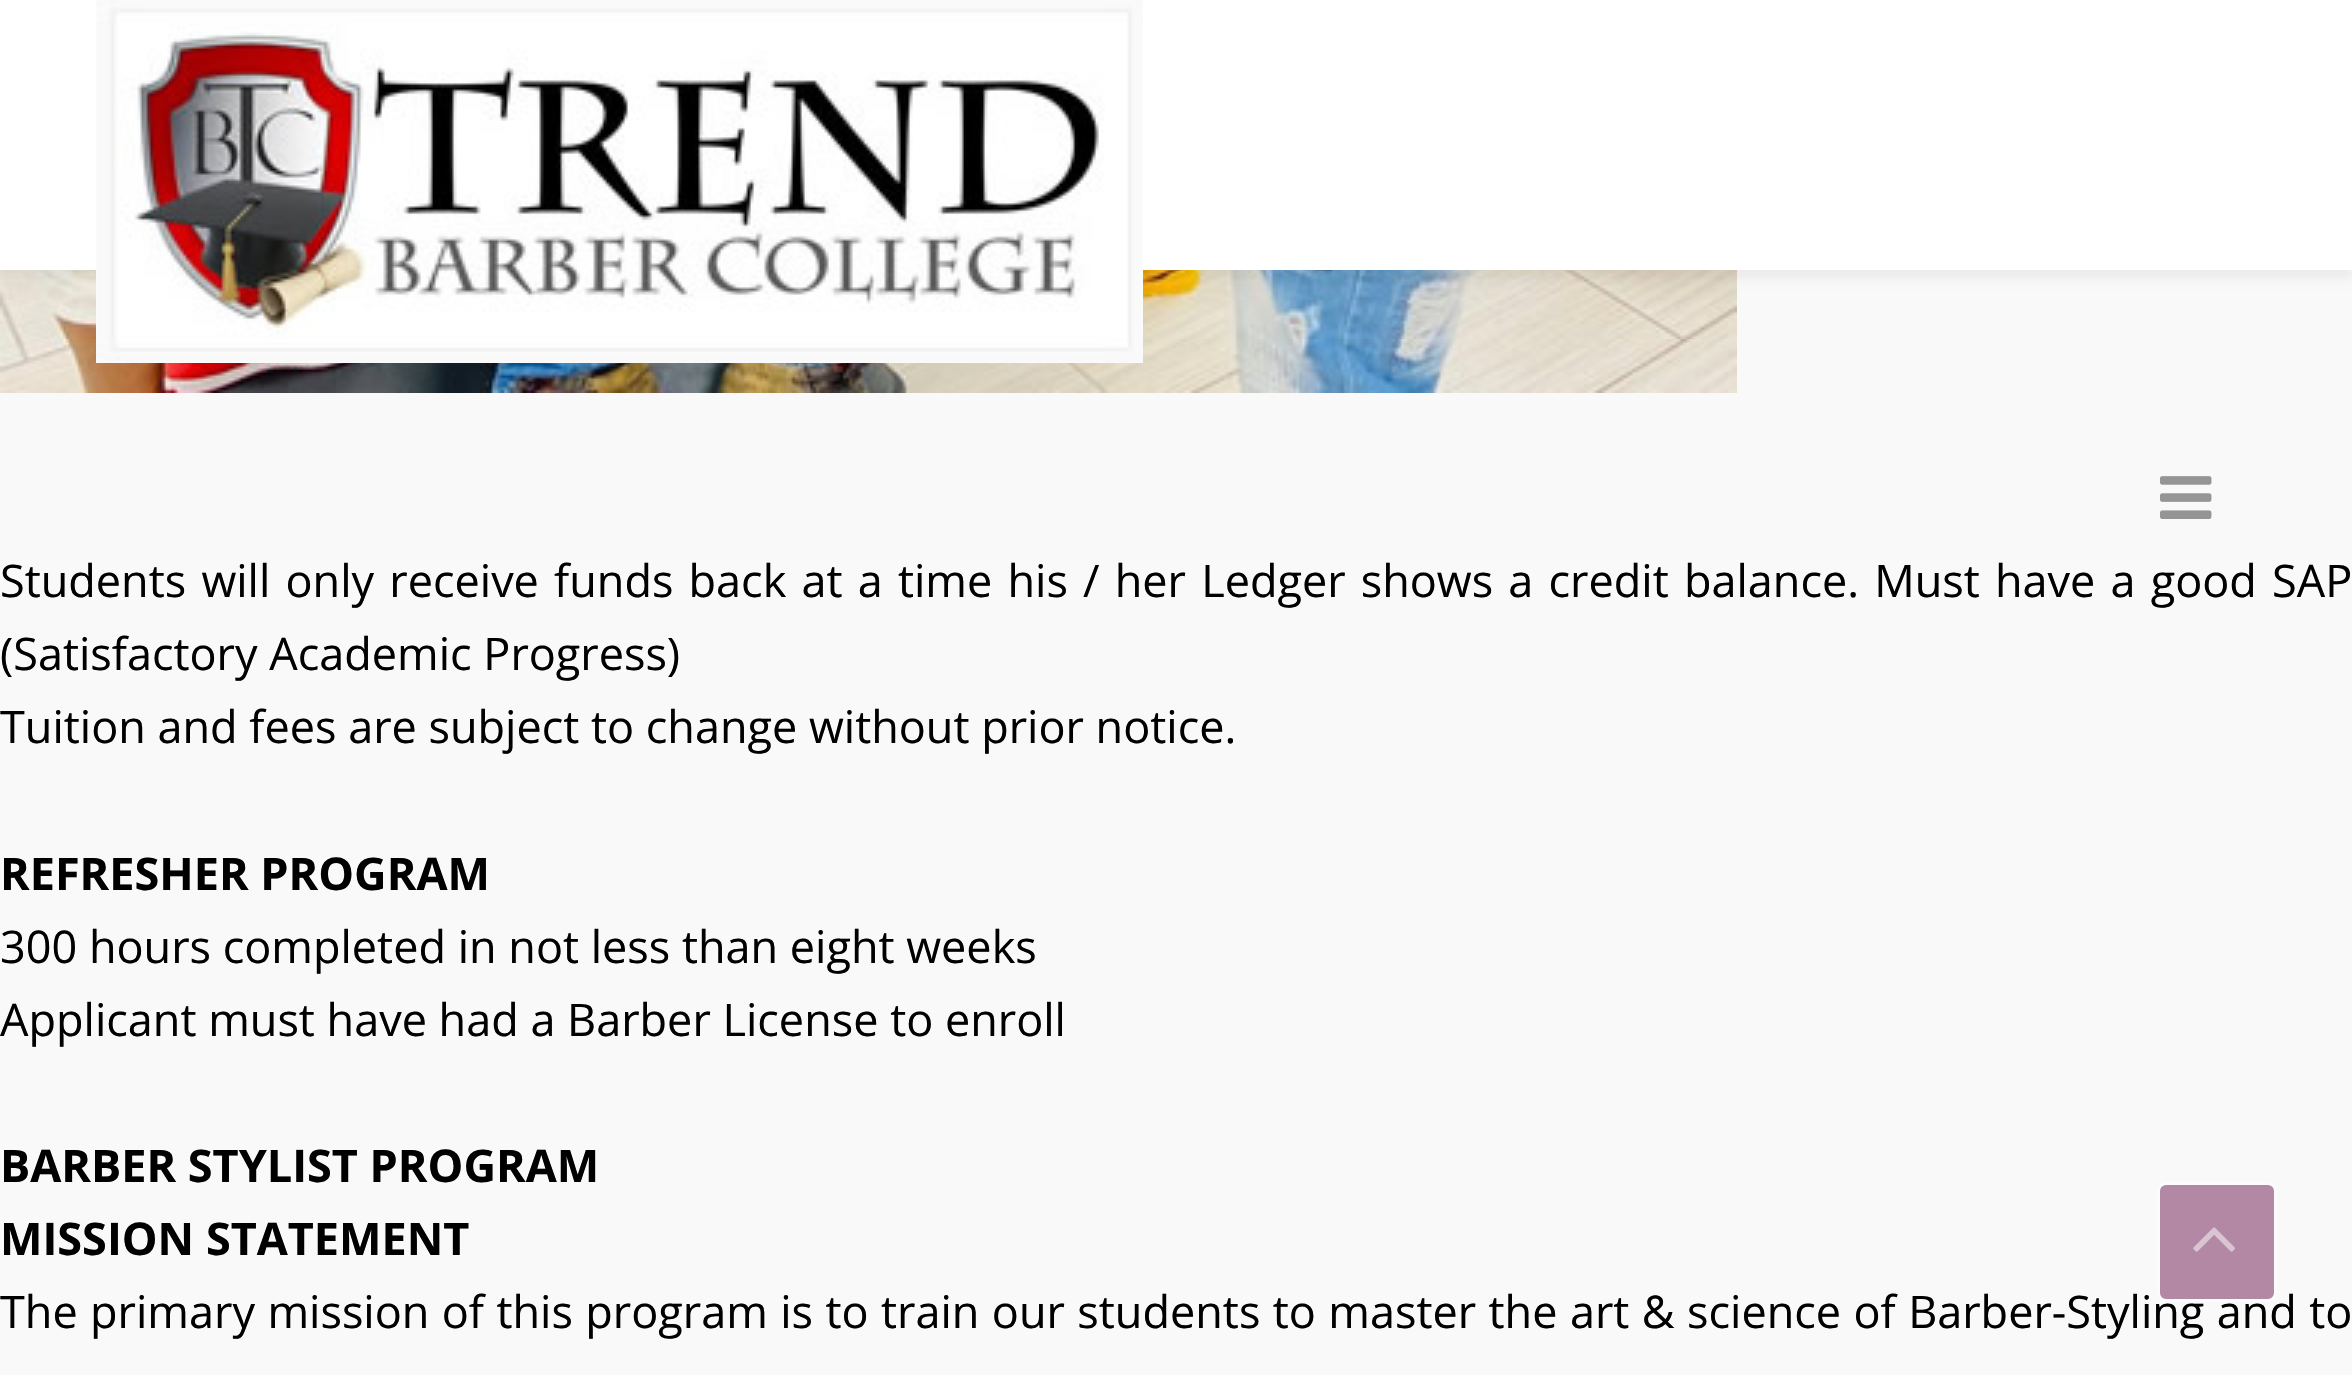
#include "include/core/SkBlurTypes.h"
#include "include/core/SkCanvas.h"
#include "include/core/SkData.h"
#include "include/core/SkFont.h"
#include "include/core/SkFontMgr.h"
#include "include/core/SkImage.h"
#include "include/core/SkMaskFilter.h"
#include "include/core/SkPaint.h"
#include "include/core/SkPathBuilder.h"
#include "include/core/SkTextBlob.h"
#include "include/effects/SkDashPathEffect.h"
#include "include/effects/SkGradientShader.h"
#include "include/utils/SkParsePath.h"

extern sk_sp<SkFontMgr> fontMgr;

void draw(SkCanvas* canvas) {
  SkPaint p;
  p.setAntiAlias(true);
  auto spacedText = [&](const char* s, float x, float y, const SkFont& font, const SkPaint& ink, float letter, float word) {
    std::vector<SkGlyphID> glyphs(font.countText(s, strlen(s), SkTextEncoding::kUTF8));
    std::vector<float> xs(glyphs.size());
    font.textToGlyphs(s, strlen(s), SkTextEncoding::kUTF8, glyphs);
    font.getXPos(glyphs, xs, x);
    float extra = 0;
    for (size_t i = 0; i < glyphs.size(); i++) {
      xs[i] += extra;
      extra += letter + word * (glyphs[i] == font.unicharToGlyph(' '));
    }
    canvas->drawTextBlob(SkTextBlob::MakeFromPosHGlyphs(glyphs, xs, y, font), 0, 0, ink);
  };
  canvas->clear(SkColorSetRGB(249, 249, 249));
  canvas->drawImageRect(SkImages::DeferredFromEncodedData(SkData::MakeFromFileName("images/3.png")), SkRect::MakeLTRB(0, 270, 1737, 393), SkSamplingOptions());
  p.setColor(SkColorSetARGB(13, 0, 0, 0));
  p.setMaskFilter(SkMaskFilter::MakeBlur(kNormal_SkBlurStyle, 4.5f));
  canvas->drawRect(SkRect::MakeLTRB(0, 9, 2352, 279), p);
  p.setMaskFilter(nullptr);
  p.setColor(SK_ColorWHITE);
  canvas->drawRect(SkRect::MakeLTRB(0, 0, 2352, 270), p);
  canvas->drawImageRect(SkImages::DeferredFromEncodedData(SkData::MakeFromFileName("images/1.png")), SkRect::MakeLTRB(96, 0, 1143, 363), SkSamplingOptions());
  canvas->drawImageRect(SkImages::DeferredFromEncodedData(SkData::MakeFromFileName("images/2.png")), SkRect::MakeLTRB(2160, 476, 2212, 519), SkSamplingOptions());
  SkFont font1(fontMgr->matchFamilyStyle("Open Sans", SkFontStyle::Normal()), 45);
  font1.setSubpixel(true);
  p.setColor(SK_ColorBLACK);
  spacedText("Students will only receive funds back at a time his / her Ledger shows a credit balance. Must have a good SAP", 0, 597, font1, p, 0, 3.5f);
  canvas->drawString("(Satisfactory Academic Progress)", 0, 670, font1, p);
  canvas->drawString("Tuition and fees are subject to change without prior notice.", 0, 743, font1, p);
  SkFont font2(fontMgr->matchFamilyStyle("Open Sans", SkFontStyle::Bold()), 45);
  font2.setSubpixel(true);
  canvas->drawString("REFRESHER PROGRAM", 0, 890, font2, p);
  canvas->drawString("300 hours completed in not less than eight weeks", 0, 963, font1, p);
  canvas->drawString("Applicant must have had a Barber License to enroll", 0, 1036, font1, p);
  canvas->drawString("BARBER STYLIST PROGRAM", 0, 1182, font2, p);
  canvas->drawString("MISSION STATEMENT", 0, 1255, font2, p);
  spacedText("The primary mission of this program is to train our students to master the art & science of Barber-Styling and to", 0, 1328, font1, p, 0, 0.75f);
  p.setColor(SkColorSetRGB(178, 136, 164));
  canvas->drawRoundRect(SkRect::MakeLTRB(2158.5f, 1183.5f, 2275.5f, 1300.5f), 7.5f, 7.5f, p);
  p.setStyle(SkPaint::kStroke_Style);
  p.setStrokeWidth(3);
  p.setColor(SkColorSetRGB(252, 252, 252));
  canvas->drawRoundRect(SkRect::MakeLTRB(2158.5f, 1183.5f, 2275.5f, 1300.5f), 7.5f, 7.5f, p);
  canvas->drawImageRect(SkImages::DeferredFromEncodedData(SkData::MakeFromFileName("images/4.png")), SkRect::MakeLTRB(2193, 1227, 2235, 1252), SkSamplingOptions());
}
